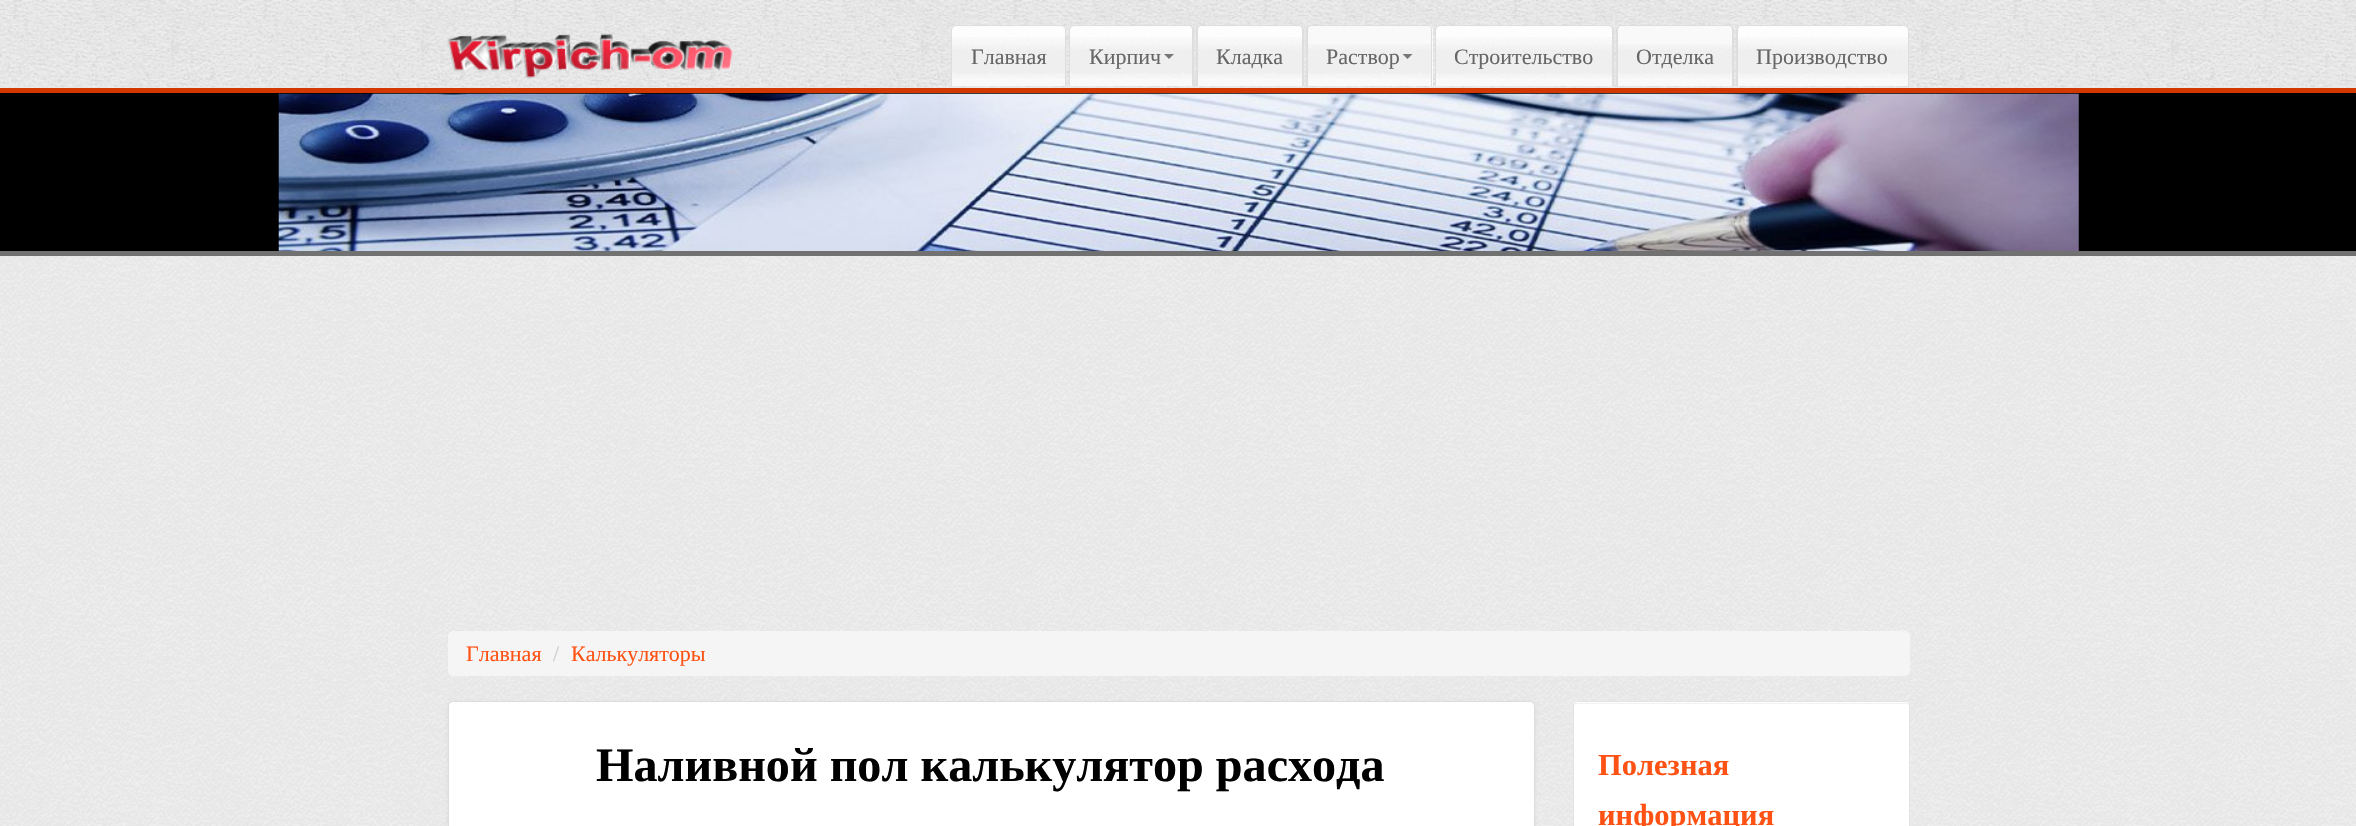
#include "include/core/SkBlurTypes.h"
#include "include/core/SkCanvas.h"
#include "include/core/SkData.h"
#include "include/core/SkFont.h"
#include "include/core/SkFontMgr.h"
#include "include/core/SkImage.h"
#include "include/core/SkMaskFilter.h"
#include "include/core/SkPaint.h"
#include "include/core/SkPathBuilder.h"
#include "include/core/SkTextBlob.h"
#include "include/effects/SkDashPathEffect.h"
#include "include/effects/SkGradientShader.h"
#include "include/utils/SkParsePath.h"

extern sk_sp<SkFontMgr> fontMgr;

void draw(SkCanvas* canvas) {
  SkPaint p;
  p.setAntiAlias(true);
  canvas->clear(SK_ColorWHITE);
  canvas->drawImageRect(SkImages::DeferredFromEncodedData(SkData::MakeFromFileName("images/1.png")), SkRect::MakeLTRB(0, 87, 2356, 826), SkSamplingOptions());
  canvas->drawImageRect(SkImages::DeferredFromEncodedData(SkData::MakeFromFileName("images/2.png")), SkRect::MakeLTRB(0, 0, 2356, 88), SkSamplingOptions());
  canvas->drawImageRect(SkImages::DeferredFromEncodedData(SkData::MakeFromFileName("images/3.png")), SkRect::MakeLTRB(447, 33, 734, 79), SkSamplingOptions());
  p.setColor(SkColorSetRGB(249, 249, 249));
  canvas->drawPath(SkPathBuilder().moveTo(956, 25).lineTo(1061, 25).cubicTo(1064, 25, 1066, 27, 1066, 30).lineTo(1066, 86).lineTo(951, 86).lineTo(951, 30).cubicTo(951, 27, 953, 25, 956, 25).close().detach(), p);
  canvas->drawImageRect(SkImages::DeferredFromEncodedData(SkData::MakeFromFileName("images/4.png")), SkRect::MakeLTRB(951, 26, 1066, 79), SkSamplingOptions());
  p.setColor(SkColorSetRGB(222, 222, 222));
  canvas->drawPath(SkPathBuilder(SkPathFillType::kEvenOdd).moveTo(956, 25).lineTo(1061, 25).cubicTo(1064, 25, 1066, 27, 1066, 30).lineTo(1066, 86).lineTo(951, 86).lineTo(951, 30).cubicTo(951, 27, 953, 25, 956, 25).close().moveTo(956, 26).lineTo(1061, 26).cubicTo(1063, 26, 1065, 28, 1065, 30).lineTo(1065, 86).lineTo(952, 86).lineTo(952, 30).cubicTo(952, 28, 954, 26, 956, 26).close().detach(), p);
  p.setColor(SkColorSetRGB(249, 249, 249));
  canvas->drawPath(SkPathBuilder().moveTo(1074, 25).lineTo(1189, 25).cubicTo(1192, 25, 1194, 27, 1194, 30).lineTo(1194, 86).lineTo(1069, 86).lineTo(1069, 30).cubicTo(1069, 27, 1071, 25, 1074, 25).close().detach(), p);
  canvas->drawImageRect(SkImages::DeferredFromEncodedData(SkData::MakeFromFileName("images/5.png")), SkRect::MakeLTRB(1069, 26, 1194, 79), SkSamplingOptions());
  p.setColor(SkColorSetRGB(222, 222, 222));
  canvas->drawPath(SkPathBuilder(SkPathFillType::kEvenOdd).moveTo(1074, 25).lineTo(1189, 25).cubicTo(1192, 25, 1194, 27, 1194, 30).lineTo(1194, 86).lineTo(1069, 86).lineTo(1069, 30).cubicTo(1069, 27, 1071, 25, 1074, 25).close().moveTo(1074, 26).lineTo(1189, 26).cubicTo(1191, 26, 1192, 28, 1192, 30).lineTo(1192, 86).lineTo(1070, 86).lineTo(1070, 30).cubicTo(1070, 28, 1072, 26, 1074, 26).close().detach(), p);
  p.setColor(SkColorSetRGB(119, 119, 119));
  canvas->drawPath(SkPathBuilder().moveTo(1164, 54).lineTo(1174, 54).lineTo(1169, 59).close().detach(), p);
  p.setColor(SkColorSetRGB(249, 249, 249));
  canvas->drawPath(SkPathBuilder().moveTo(1201, 25).lineTo(1299, 25).cubicTo(1302, 25, 1304, 27, 1304, 30).lineTo(1304, 86).lineTo(1196, 86).lineTo(1196, 30).cubicTo(1196, 27, 1198, 25, 1201, 25).close().detach(), p);
  canvas->drawImageRect(SkImages::DeferredFromEncodedData(SkData::MakeFromFileName("images/6.png")), SkRect::MakeLTRB(1196, 26, 1304, 79), SkSamplingOptions());
  p.setColor(SkColorSetRGB(222, 222, 222));
  canvas->drawPath(SkPathBuilder(SkPathFillType::kEvenOdd).moveTo(1201, 25).lineTo(1299, 25).cubicTo(1302, 25, 1304, 27, 1304, 30).lineTo(1304, 86).lineTo(1196, 86).lineTo(1196, 30).cubicTo(1196, 27, 1198, 25, 1201, 25).close().moveTo(1201, 26).lineTo(1299, 26).cubicTo(1301, 26, 1302, 28, 1302, 30).lineTo(1302, 86).lineTo(1198, 86).lineTo(1198, 30).cubicTo(1198, 28, 1199, 26, 1201, 26).close().detach(), p);
  p.setColor(SkColorSetRGB(249, 249, 249));
  canvas->drawPath(SkPathBuilder().moveTo(1311, 25).lineTo(1428, 25).cubicTo(1431, 25, 1433, 27, 1433, 30).lineTo(1433, 86).lineTo(1306, 86).lineTo(1306, 30).cubicTo(1306, 27, 1308, 25, 1311, 25).close().detach(), p);
  canvas->drawImageRect(SkImages::DeferredFromEncodedData(SkData::MakeFromFileName("images/7.png")), SkRect::MakeLTRB(1308, 44, 1431, 79), SkSamplingOptions());
  p.setColor(SkColorSetRGB(222, 222, 222));
  canvas->drawPath(SkPathBuilder(SkPathFillType::kEvenOdd).moveTo(1311, 25).lineTo(1428, 25).cubicTo(1430, 25, 1432, 27, 1432, 30).lineTo(1432, 86).lineTo(1306, 86).lineTo(1306, 30).cubicTo(1306, 27, 1308, 25, 1311, 25).close().moveTo(1311, 26).lineTo(1428, 26).cubicTo(1430, 26, 1431, 28, 1431, 30).lineTo(1431, 86).lineTo(1308, 86).lineTo(1308, 30).cubicTo(1308, 28, 1309, 26, 1311, 26).close().detach(), p);
  p.setColor(SkColorSetRGB(119, 119, 119));
  canvas->drawPath(SkPathBuilder().moveTo(1402.5f, 54).lineTo(1412.5f, 54).lineTo(1407.5f, 59).close().detach(), p);
  p.setColor(SkColorSetRGB(249, 249, 249));
  canvas->drawPath(SkPathBuilder().moveTo(1440, 25).lineTo(1609, 25).cubicTo(1612, 25, 1614, 27, 1614, 30).lineTo(1614, 86).lineTo(1435, 86).lineTo(1435, 30).cubicTo(1435, 27, 1437, 25, 1440, 25).close().detach(), p);
  canvas->drawImageRect(SkImages::DeferredFromEncodedData(SkData::MakeFromFileName("images/8.png")), SkRect::MakeLTRB(1435, 26, 1614, 79), SkSamplingOptions());
  p.setColor(SkColorSetRGB(222, 222, 222));
  canvas->drawPath(SkPathBuilder(SkPathFillType::kEvenOdd).moveTo(1440, 25).lineTo(1609, 25).cubicTo(1612, 25, 1614, 27, 1614, 30).lineTo(1614, 86).lineTo(1435, 86).lineTo(1435, 30).cubicTo(1435, 27, 1437, 25, 1440, 25).close().moveTo(1440, 26).lineTo(1609, 26).cubicTo(1611, 26, 1612, 28, 1612, 30).lineTo(1612, 86).lineTo(1436, 86).lineTo(1436, 30).cubicTo(1436, 28, 1438, 26, 1440, 26).close().detach(), p);
  p.setColor(SkColorSetRGB(249, 249, 249));
  canvas->drawPath(SkPathBuilder().moveTo(1621, 25).lineTo(1729, 25).cubicTo(1732, 25, 1734, 27, 1734, 30).lineTo(1734, 86).lineTo(1616, 86).lineTo(1616, 30).cubicTo(1616, 27, 1618, 25, 1621, 25).close().detach(), p);
  canvas->drawImageRect(SkImages::DeferredFromEncodedData(SkData::MakeFromFileName("images/9.png")), SkRect::MakeLTRB(1618, 44, 1732, 79), SkSamplingOptions());
  p.setColor(SkColorSetRGB(222, 222, 222));
  canvas->drawPath(SkPathBuilder(SkPathFillType::kEvenOdd).moveTo(1621, 25).lineTo(1729, 25).cubicTo(1732, 25, 1734, 27, 1734, 30).lineTo(1734, 86).lineTo(1616, 86).lineTo(1616, 30).cubicTo(1616, 27, 1618, 25, 1621, 25).close().moveTo(1621, 26).lineTo(1729, 26).cubicTo(1731, 26, 1732, 28, 1732, 30).lineTo(1732, 86).lineTo(1618, 86).lineTo(1618, 30).cubicTo(1618, 28, 1619, 26, 1621, 26).close().detach(), p);
  p.setColor(SkColorSetRGB(249, 249, 249));
  canvas->drawPath(SkPathBuilder().moveTo(1741, 25).lineTo(1904, 25).cubicTo(1907, 25, 1909, 27, 1909, 30).lineTo(1909, 86).lineTo(1736, 86).lineTo(1736, 30).cubicTo(1736, 27, 1738, 25, 1741, 25).close().detach(), p);
  canvas->drawImageRect(SkImages::DeferredFromEncodedData(SkData::MakeFromFileName("images/10.png")), SkRect::MakeLTRB(1736, 26, 1909, 79), SkSamplingOptions());
  p.setColor(SkColorSetRGB(222, 222, 222));
  canvas->drawPath(SkPathBuilder(SkPathFillType::kEvenOdd).moveTo(1741, 25).lineTo(1904, 25).cubicTo(1907, 25, 1909, 27, 1909, 30).lineTo(1909, 86).lineTo(1736, 86).lineTo(1736, 30).cubicTo(1736, 27, 1738, 25, 1741, 25).close().moveTo(1741, 26).lineTo(1904, 26).cubicTo(1906, 26, 1908, 28, 1908, 30).lineTo(1908, 86).lineTo(1738, 86).lineTo(1738, 30).cubicTo(1738, 28, 1739, 26, 1741, 26).close().detach(), p);
  p.setColor(SK_ColorBLACK);
  canvas->drawRect(SkRect::MakeLTRB(0, 93, 2356, 251), p);
  canvas->drawImageRect(SkImages::DeferredFromEncodedData(SkData::MakeFromFileName("images/11.png")), SkRect::MakeLTRB(278, 93, 2079, 251), SkSamplingOptions());
  p.setColor(SkColorSetRGB(211, 56, 0));
  canvas->drawRect(SkRect::MakeLTRB(0, 88, 2356, 93), p);
  p.setColor(SkColorSetRGB(113, 113, 113));
  canvas->drawRect(SkRect::MakeLTRB(0, 251, 2356, 256), p);
  p.setColor(SkColorSetRGB(245, 245, 245));
  canvas->drawRoundRect(SkRect::MakeLTRB(448, 631, 1910, 676), 5, 5, p);
  p.setColor(SkColorSetARGB(15, 0, 0, 0));
  p.setMaskFilter(SkMaskFilter::MakeBlur(kNormal_SkBlurStyle, 2));
  canvas->drawRoundRect(SkRect::MakeLTRB(448, 703, 1535, 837), 5, 5, p);
  p.setMaskFilter(nullptr);
  p.setColor(SK_ColorWHITE);
  canvas->drawRoundRect(SkRect::MakeLTRB(448.5f, 701.5f, 1534.5f, 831.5f), 4.5f, 4.5f, p);
  p.setStyle(SkPaint::kStroke_Style);
  p.setStrokeWidth(1);
  p.setColor(SkColorSetRGB(221, 221, 221));
  canvas->drawRoundRect(SkRect::MakeLTRB(448.5f, 701.5f, 1534.5f, 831.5f), 4.5f, 4.5f, p);
  p.setStyle(SkPaint::kFill_Style);
  p.setColor(SK_ColorWHITE);
  canvas->drawRoundRect(SkRect::MakeLTRB(1573, 701, 1910, 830), 4, 4, p);
  p.setColor(SkColorSetRGB(242, 242, 242));
  canvas->drawPath(SkPathBuilder().moveTo(1576, 704).lineTo(1906, 704).cubicTo(1908, 704, 1909, 705, 1909, 706).cubicTo(1909, 704, 1908, 703, 1906, 703).lineTo(1576, 703).cubicTo(1575, 703, 1574, 704, 1574, 706).cubicTo(1574, 705, 1575, 704, 1576, 704).close().detach(), p);
  p.setStyle(SkPaint::kStroke_Style);
  p.setColor(SkColorSetRGB(227, 227, 227));
  canvas->drawRoundRect(SkRect::MakeLTRB(1573.5f, 701.5f, 1909.5f, 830.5f), 3.5f, 3.5f, p);
  SkFont font1(fontMgr->matchFamilyStyle("Liberation Serif", SkFontStyle::Normal()), 22);
  font1.setSubpixel(true);
  p.setStyle(SkPaint::kFill_Style);
  p.setColor(SkColorSetRGB(102, 102, 102));
  canvas->drawString("Главная", 971, 64, font1, p);
  canvas->drawString("Кирпич", 1089, 64, font1, p);
  canvas->drawString("Кладка", 1216, 64, font1, p);
  canvas->drawString("Раствор", 1326, 64, font1, p);
  canvas->drawString("Строительство", 1454, 64, font1, p);
  canvas->drawString("Отделка", 1636, 64, font1, p);
  canvas->drawString("Производство", 1756, 64, font1, p);
  p.setColor(SkColorSetRGB(254, 82, 20));
  canvas->drawString("Главная", 466, 661, font1, p);
  p.setColor(SkColorSetRGB(204, 204, 204));
  canvas->drawString("/", 553, 661, font1, p);
  p.setColor(SkColorSetRGB(254, 82, 20));
  canvas->drawString("Калькуляторы", 571, 661, font1, p);
  SkFont font2(fontMgr->matchFamilyStyle("Liberation Serif", SkFontStyle::Bold()), 48.1f);
  font2.setSubpixel(true);
  p.setColor(SK_ColorBLACK);
  canvas->drawString("Наливной пол калькулятор расхода", 596, 781, font2, p);
  SkFont font3(fontMgr->matchFamilyStyle("Liberation Serif", SkFontStyle::Bold()), 30.5f);
  font3.setSubpixel(true);
  p.setColor(SkColorSetRGB(254, 82, 20));
  canvas->drawString("Полезная", 1598, 775, font3, p);
  canvas->drawString("информация", 1598, 825, font3, p);
}
